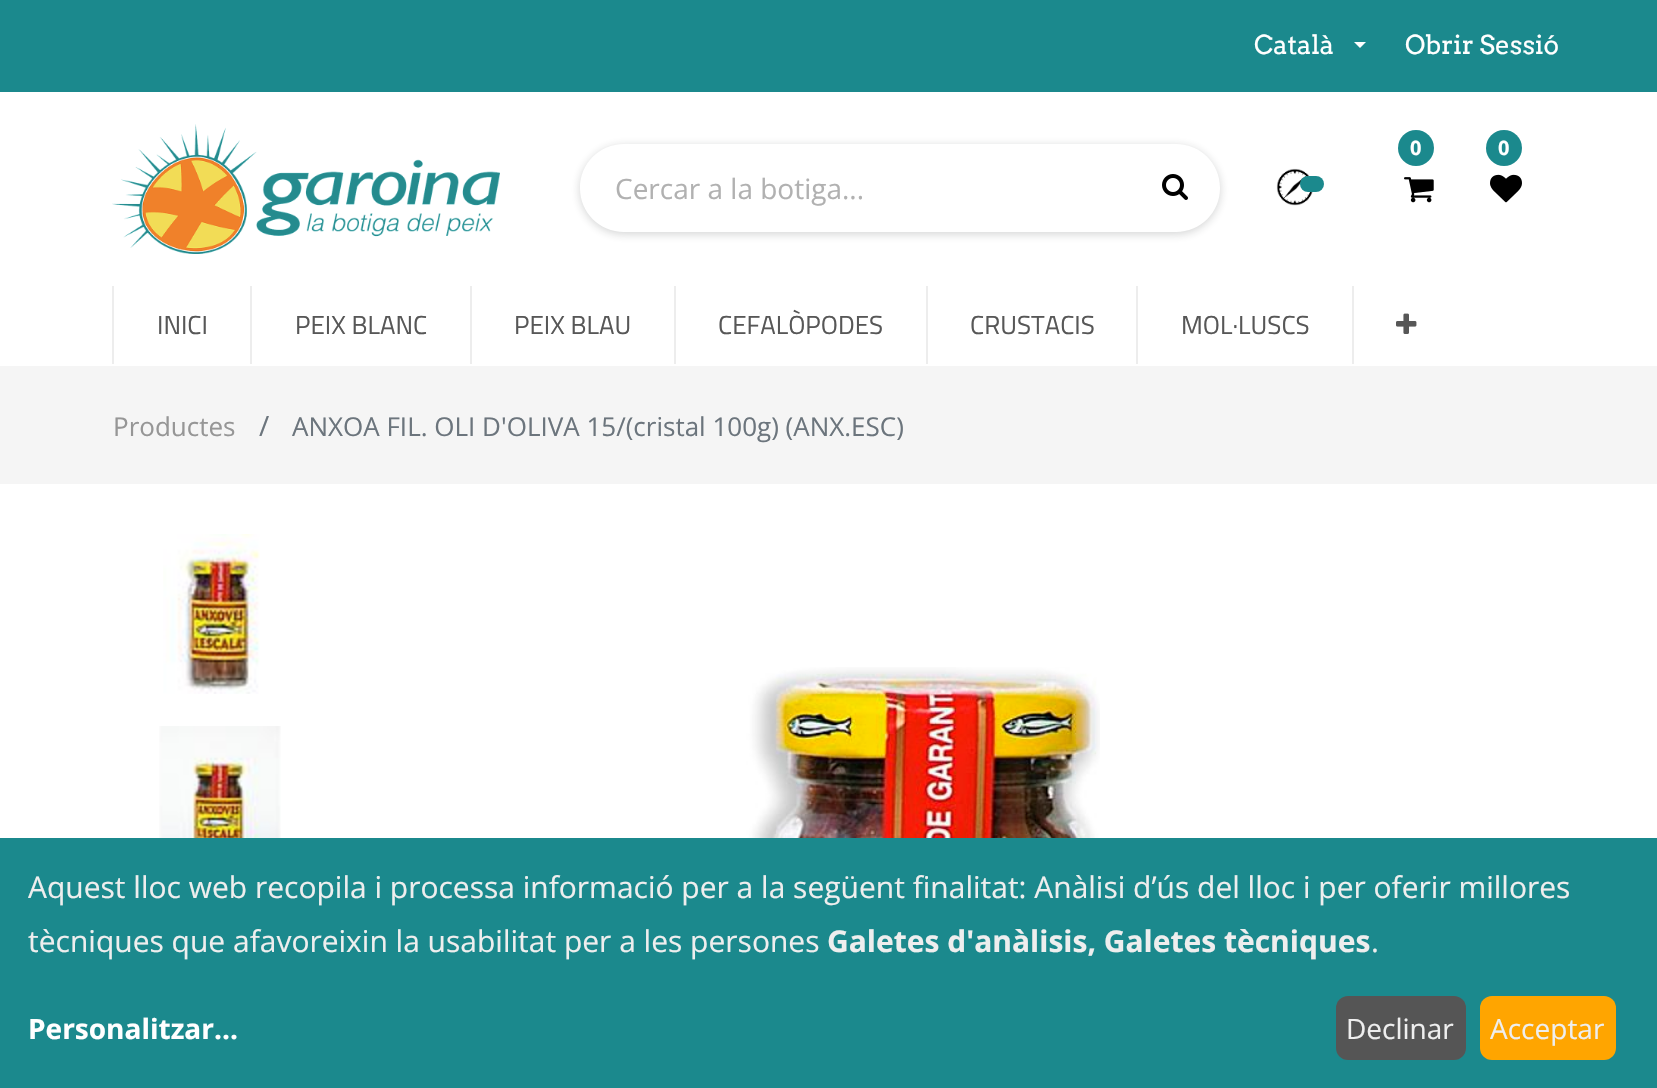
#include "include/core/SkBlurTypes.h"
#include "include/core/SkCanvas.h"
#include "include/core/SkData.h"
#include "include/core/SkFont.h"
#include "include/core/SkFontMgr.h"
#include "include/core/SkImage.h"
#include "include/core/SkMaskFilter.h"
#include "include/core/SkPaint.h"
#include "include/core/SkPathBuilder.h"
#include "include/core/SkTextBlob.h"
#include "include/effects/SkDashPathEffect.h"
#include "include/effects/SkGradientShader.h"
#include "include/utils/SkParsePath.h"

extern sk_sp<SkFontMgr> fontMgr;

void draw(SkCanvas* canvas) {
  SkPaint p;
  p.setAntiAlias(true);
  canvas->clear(SK_ColorWHITE);
  p.setColor(SkColorSetRGB(27, 137, 141));
  canvas->drawRect(SkRect::MakeLTRB(0, 0, 1657, 92), p);
  p.setColor(SK_ColorWHITE);
  canvas->drawPath(SkPathBuilder().moveTo(1354, 42).lineTo(1366, 42).lineTo(1360, 48).close().detach(), p);
  canvas->drawImageRect(SkImages::DeferredFromEncodedData(SkData::MakeFromFileName("images/1.png")), SkRect::MakeLTRB(112, 124, 500, 254), SkSamplingOptions());
  p.setColor(SkColorSetRGB(27, 137, 141));
  canvas->drawCircle(1416, 148, 18, p);
  canvas->drawImageRect(SkImages::DeferredFromEncodedData(SkData::MakeFromFileName("images/2.png")), SkRect::MakeLTRB(1404, 177, 1434, 203), SkSamplingOptions());
  canvas->drawCircle(1504, 148, 18, p);
  canvas->drawImageRect(SkImages::DeferredFromEncodedData(SkData::MakeFromFileName("images/3.png")), SkRect::MakeLTRB(1490, 174, 1522, 203), SkSamplingOptions());
  canvas->save();
  canvas->clipPath(SkPathBuilder(SkPathFillType::kEvenOdd).moveTo(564, 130).lineTo(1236, 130).lineTo(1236, 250).lineTo(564, 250).close().moveTo(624, 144).lineTo(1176, 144).cubicTo(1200.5f, 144, 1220, 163.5f, 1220, 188).cubicTo(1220, 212.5f, 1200.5f, 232, 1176, 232).lineTo(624, 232).cubicTo(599.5f, 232, 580, 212.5f, 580, 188).cubicTo(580, 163.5f, 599.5f, 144, 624, 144).close().detach(), true);
  p.setColor(SkColorSetARGB(51, 32, 33, 36));
  p.setMaskFilter(SkMaskFilter::MakeBlur(kNormal_SkBlurStyle, 5));
  canvas->drawRoundRect(SkRect::MakeLTRB(580, 146, 1220, 234), 44, 44, p);
  p.setMaskFilter(nullptr);
  canvas->restore();
  canvas->drawImageRect(SkImages::DeferredFromEncodedData(SkData::MakeFromFileName("images/4.png")), SkRect::MakeLTRB(1162, 174, 1188, 200), SkSamplingOptions());
  canvas->drawImageRect(SkImages::DeferredFromEncodedData(SkData::MakeFromFileName("images/5.png")), SkRect::MakeLTRB(1276, 168, 1314, 206), SkSamplingOptions());
  p.setColor(SkColorSetRGB(27, 137, 141));
  canvas->drawRoundRect(SkRect::MakeLTRB(1300, 176, 1324, 192), 8, 8, p);
  p.setColor(SkColorSetRGB(237, 237, 237));
  canvas->drawRect(SkRect::MakeLTRB(112, 286, 114, 364), p);
  canvas->drawRect(SkRect::MakeLTRB(250, 286, 252, 364), p);
  canvas->drawRect(SkRect::MakeLTRB(470, 286, 472, 364), p);
  canvas->drawRect(SkRect::MakeLTRB(674, 286, 676, 364), p);
  canvas->drawRect(SkRect::MakeLTRB(926, 286, 928, 364), p);
  canvas->drawRect(SkRect::MakeLTRB(1136, 286, 1138, 364), p);
  canvas->drawRect(SkRect::MakeLTRB(1352, 286, 1354, 364), p);
  canvas->drawImageRect(SkImages::DeferredFromEncodedData(SkData::MakeFromFileName("images/6.png")), SkRect::MakeLTRB(1396, 313, 1417, 334), SkSamplingOptions());
  p.setColor(SkColorSetRGB(245, 245, 245));
  canvas->drawRect(SkRect::MakeLTRB(0, 366, 1657, 484), p);
  canvas->drawImageRect(SkImages::DeferredFromEncodedData(SkData::MakeFromFileName("images/7.png")), SkRect::MakeLTRB(163, 534, 260, 694), SkSamplingOptions());
  canvas->drawImageRect(SkImages::DeferredFromEncodedData(SkData::MakeFromFileName("images/8.png")), SkRect::MakeLTRB(159, 726, 281, 838), SkSamplingOptions());
  canvas->drawImageRect(SkImages::DeferredFromEncodedData(SkData::MakeFromFileName("images/9.png")), SkRect::MakeLTRB(746, 667, 1100, 838), SkSamplingOptions());
  p.setColor(SkColorSetRGB(27, 137, 141));
  canvas->drawRect(SkRect::MakeLTRB(0, 838, 1657, 1088), p);
  p.setColor(SkColorSetRGB(85, 85, 85));
  canvas->drawRoundRect(SkRect::MakeLTRB(1336, 996, 1466, 1060), 12, 12, p);
  p.setColor(SkColorSetRGB(255, 165, 0));
  canvas->drawRoundRect(SkRect::MakeLTRB(1480, 996, 1616, 1060), 12, 12, p);
  SkFont font1(fontMgr->matchFamilyStyle("Arvo", SkFontStyle::Normal()), 26);
  font1.setSubpixel(true);
  p.setColor(SK_ColorWHITE);
  canvas->drawString("Català", 1254, 54, font1, p);
  canvas->drawString("Obrir Sessió", 1405, 54, font1, p);
  SkFont font2(fontMgr->matchFamilyStyle("Open Sans", SkFontStyle::Bold()), 20);
  font2.setSubpixel(true);
  canvas->drawString("0", 1410, 155, font2, p);
  canvas->drawString("0", 1498, 155, font2, p);
  SkFont font3(fontMgr->matchFamilyStyle("Open Sans", SkFontStyle::Normal()), 28);
  font3.setSubpixel(true);
  p.setColor(SkColorSetRGB(177, 177, 177));
  canvas->drawString("Cercar a la botiga...", 615, 199, font3, p);
  SkFont font4(fontMgr->matchFamilyStyle("Titillium Web", SkFontStyle::Normal()), 26);
  font4.setSubpixel(true);
  p.setColor(SkColorSetRGB(87, 87, 87));
  canvas->drawString("INICI", 157, 334, font4, p);
  canvas->drawString("PEIX BLANC", 295, 334, font4, p);
  canvas->drawString("PEIX BLAU", 514, 334, font4, p);
  canvas->drawString("CEFALÒPODES", 718, 334, font4, p);
  canvas->drawString("CRUSTACIS", 970, 334, font4, p);
  canvas->drawString("MOL·LUSCS", 1181, 334, font4, p);
  SkFont font5(fontMgr->matchFamilyStyle("Open Sans", SkFontStyle::Normal()), 26);
  font5.setSubpixel(true);
  p.setColor(SkColorSetRGB(150, 150, 150));
  canvas->drawString("Productes", 113, 436, font5, p);
  p.setColor(SkColorSetRGB(108, 117, 125));
  canvas->drawString("/", 259, 436, font3, p);
  canvas->drawString("ANXOA FIL. OLI D'OLIVA 15/(cristal 100g) (ANX.ESC)", 292, 436, font5, p);
  SkFont font6(fontMgr->matchFamilyStyle("Open Sans", SkFontStyle::Normal()), 30);
  font6.setSubpixel(true);
  p.setColor(SkColorSetRGB(238, 238, 238));
  canvas->drawString("Aquest lloc web recopila i processa informació per a la següent finalitat: Anàlisi d’ús del lloc i per oferir millores", 28, 898, font6, p);
  canvas->drawString("tècniques que afavoreixin la usabilitat per a les persones", 28, 952, font6, p);
  SkFont font7(fontMgr->matchFamilyStyle("Open Sans", SkFontStyle::Bold()), 30);
  font7.setSubpixel(true);
  canvas->drawString("Galetes d'anàlisis, Galetes tècniques", 827, 952, font7, p);
  canvas->drawString(".", 1371, 952, font6, p);
  SkFont font8(fontMgr->matchFamilyStyle("Open Sans", SkFontStyle::Bold()), 28);
  font8.setSubpixel(true);
  p.setColor(SK_ColorWHITE);
  canvas->drawString("Personalitzar...", 28, 1039, font8, p);
  p.setColor(SkColorSetRGB(238, 238, 238));
  canvas->drawString("Declinar", 1346, 1039, font3, p);
  canvas->drawString("Acceptar", 1490, 1039, font3, p);
}
